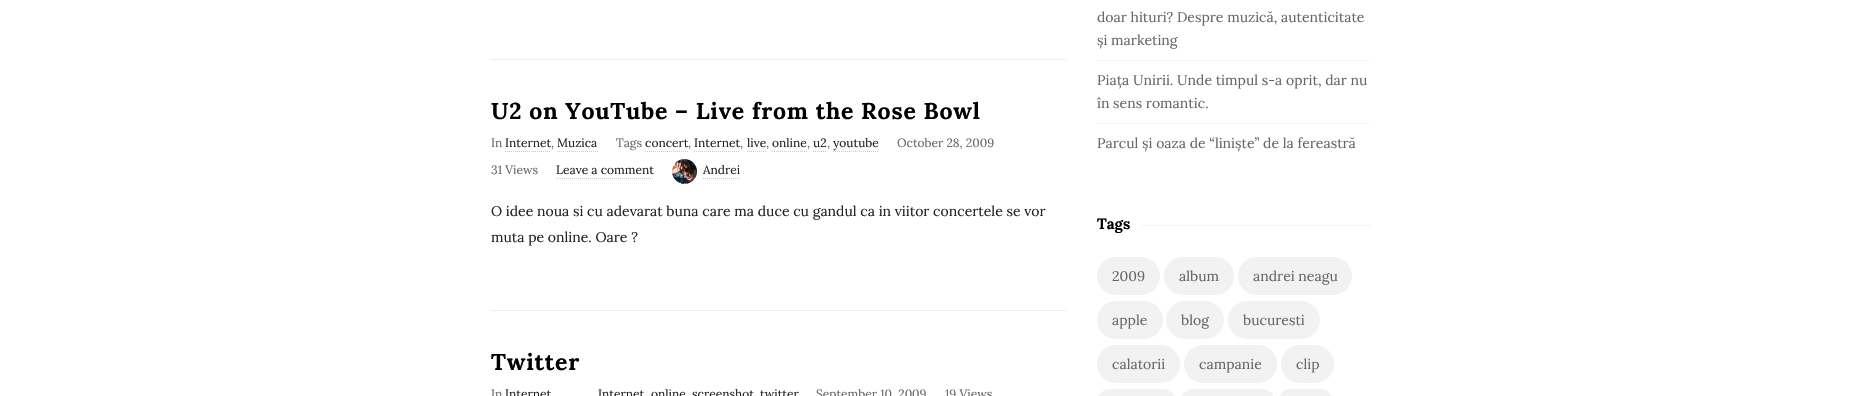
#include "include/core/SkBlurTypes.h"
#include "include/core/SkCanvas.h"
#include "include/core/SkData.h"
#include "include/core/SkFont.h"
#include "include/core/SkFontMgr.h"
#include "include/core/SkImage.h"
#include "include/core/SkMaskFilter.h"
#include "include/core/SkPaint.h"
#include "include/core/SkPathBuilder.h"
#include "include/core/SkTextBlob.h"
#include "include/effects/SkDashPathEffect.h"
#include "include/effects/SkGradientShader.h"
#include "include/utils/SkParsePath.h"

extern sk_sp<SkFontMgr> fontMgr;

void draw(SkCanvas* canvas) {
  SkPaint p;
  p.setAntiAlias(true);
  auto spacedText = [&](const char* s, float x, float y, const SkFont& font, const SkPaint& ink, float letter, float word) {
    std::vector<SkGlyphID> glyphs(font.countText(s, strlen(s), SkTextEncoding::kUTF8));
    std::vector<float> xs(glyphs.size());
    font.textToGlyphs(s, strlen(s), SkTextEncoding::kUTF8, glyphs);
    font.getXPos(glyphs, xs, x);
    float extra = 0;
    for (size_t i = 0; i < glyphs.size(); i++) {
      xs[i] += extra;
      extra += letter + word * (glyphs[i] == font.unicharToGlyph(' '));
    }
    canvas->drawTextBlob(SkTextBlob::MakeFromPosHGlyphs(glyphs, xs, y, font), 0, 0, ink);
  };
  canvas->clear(SK_ColorWHITE);
  p.setStyle(SkPaint::kStroke_Style);
  p.setStrokeWidth(1);
  p.setColor(SkColorSetRGB(221, 221, 221));
  p.setPathEffect(SkDashPathEffect::Make({{1, 1}}, 0));
  canvas->drawPath(SkPathBuilder().moveTo(491, 59.5f).lineTo(1067, 59.5f).detach(), p);
  p.setPathEffect(nullptr);
  p.setPathEffect(SkDashPathEffect::Make({{1, 1}}, 0));
  canvas->drawPath(SkPathBuilder().moveTo(491, 310.5f).lineTo(1067, 310.5f).detach(), p);
  p.setPathEffect(nullptr);
  p.setColor(SkColorSetRGB(204, 204, 204));
  p.setPathEffect(SkDashPathEffect::Make({{1, 1}}, 0));
  canvas->drawPath(SkPathBuilder().moveTo(505, 151.5f).lineTo(551, 151.5f).detach(), p);
  p.setPathEffect(nullptr);
  p.setPathEffect(SkDashPathEffect::Make({{1, 1}}, 0));
  canvas->drawPath(SkPathBuilder().moveTo(557, 151.5f).lineTo(598, 151.5f).detach(), p);
  p.setPathEffect(nullptr);
  p.setPathEffect(SkDashPathEffect::Make({{1, 1}}, 0));
  canvas->drawPath(SkPathBuilder().moveTo(645, 151.5f).lineTo(688, 151.5f).detach(), p);
  p.setPathEffect(nullptr);
  p.setPathEffect(SkDashPathEffect::Make({{1, 1}}, 0));
  canvas->drawPath(SkPathBuilder().moveTo(694, 151.5f).lineTo(740, 151.5f).detach(), p);
  p.setPathEffect(nullptr);
  p.setPathEffect(SkDashPathEffect::Make({{1, 1}}, 0));
  canvas->drawPath(SkPathBuilder().moveTo(747, 151.5f).lineTo(766, 151.5f).detach(), p);
  p.setPathEffect(nullptr);
  p.setPathEffect(SkDashPathEffect::Make({{1, 1}}, 0));
  canvas->drawPath(SkPathBuilder().moveTo(772, 151.5f).lineTo(807, 151.5f).detach(), p);
  p.setPathEffect(nullptr);
  p.setPathEffect(SkDashPathEffect::Make({{1, 1}}, 0));
  canvas->drawPath(SkPathBuilder().moveTo(813, 151.5f).lineTo(827, 151.5f).detach(), p);
  p.setPathEffect(nullptr);
  p.setPathEffect(SkDashPathEffect::Make({{1, 1}}, 0));
  canvas->drawPath(SkPathBuilder().moveTo(833, 151.5f).lineTo(879, 151.5f).detach(), p);
  p.setPathEffect(nullptr);
  p.setPathEffect(SkDashPathEffect::Make({{1, 1}}, 0));
  canvas->drawPath(SkPathBuilder().moveTo(556, 178.5f).lineTo(654, 178.5f).detach(), p);
  p.setPathEffect(nullptr);
  canvas->drawImageRect(SkImages::DeferredFromEncodedData(SkData::MakeFromFileName("images/1.png")), SkRect::MakeLTRB(672, 159, 697, 184), SkSamplingOptions());
  p.setPathEffect(SkDashPathEffect::Make({{1, 1}}, 0));
  canvas->drawPath(SkPathBuilder().moveTo(703, 178.5f).lineTo(740, 178.5f).detach(), p);
  p.setPathEffect(nullptr);
  p.setColor(SkColorSetRGB(236, 236, 236));
  p.setPathEffect(SkDashPathEffect::Make({{1, 1}}, 0));
  canvas->drawPath(SkPathBuilder().moveTo(1097, 60.5f).lineTo(1371, 60.5f).detach(), p);
  p.setPathEffect(nullptr);
  p.setPathEffect(SkDashPathEffect::Make({{1, 1}}, 0));
  canvas->drawPath(SkPathBuilder().moveTo(1097, 123.5f).lineTo(1371, 123.5f).detach(), p);
  p.setPathEffect(nullptr);
  p.setStyle(SkPaint::kFill_Style);
  p.setColor(SkColorSetRGB(242, 242, 242));
  canvas->drawRect(SkRect::MakeLTRB(1142, 225, 1371, 226), p);
  canvas->drawRoundRect(SkRect::MakeLTRB(1097, 257, 1160, 295), 19, 19, p);
  canvas->drawRoundRect(SkRect::MakeLTRB(1164, 257, 1234, 295), 19, 19, p);
  canvas->drawRoundRect(SkRect::MakeLTRB(1238, 257, 1352, 295), 19, 19, p);
  canvas->drawRoundRect(SkRect::MakeLTRB(1097, 301, 1163, 339), 19, 19, p);
  canvas->drawRoundRect(SkRect::MakeLTRB(1166, 301, 1224, 339), 19, 19, p);
  canvas->drawRoundRect(SkRect::MakeLTRB(1228, 301, 1320, 339), 19, 19, p);
  canvas->drawRoundRect(SkRect::MakeLTRB(1097, 345, 1180, 383), 19, 19, p);
  canvas->drawRoundRect(SkRect::MakeLTRB(1184, 345, 1277, 383), 19, 19, p);
  canvas->drawRoundRect(SkRect::MakeLTRB(1281, 345, 1334, 383), 19, 19, p);
  canvas->drawRoundRect(SkRect::MakeLTRB(1097, 389, 1176, 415), 19, 19, p);
  canvas->drawRoundRect(SkRect::MakeLTRB(1180, 389, 1275, 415), 19, 19, p);
  canvas->drawRoundRect(SkRect::MakeLTRB(1278, 389, 1333, 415), 19, 19, p);
  SkFont font1(fontMgr->matchFamilyStyle("Lora", SkFontStyle::Bold()), 23);
  font1.setSubpixel(true);
  p.setColor(SK_ColorBLACK);
  spacedText("U2 on YouTube – Live from the Rose Bowl", 491, 119, font1, p, 0.8f, 0);
  SkFont font2(fontMgr->matchFamilyStyle("Lora", SkFontStyle::Normal()), 12);
  font2.setSubpixel(true);
  p.setColor(SkColorSetRGB(102, 102, 102));
  canvas->drawString("In", 491, 147, font2, p);
  p.setColor(SkColorSetRGB(34, 34, 34));
  canvas->drawString("Internet", 505, 147, font2, p);
  p.setColor(SkColorSetRGB(102, 102, 102));
  canvas->drawString(",", 551, 147, font2, p);
  p.setColor(SkColorSetRGB(34, 34, 34));
  canvas->drawString("Muzica", 557, 147, font2, p);
  p.setColor(SkColorSetRGB(102, 102, 102));
  canvas->drawString("Tags", 616, 147, font2, p);
  p.setColor(SkColorSetRGB(34, 34, 34));
  canvas->drawString("concert", 645, 147, font2, p);
  p.setColor(SkColorSetRGB(102, 102, 102));
  canvas->drawString(",", 688, 147, font2, p);
  p.setColor(SkColorSetRGB(34, 34, 34));
  canvas->drawString("Internet", 694, 147, font2, p);
  p.setColor(SkColorSetRGB(102, 102, 102));
  canvas->drawString(",", 740, 147, font2, p);
  p.setColor(SkColorSetRGB(34, 34, 34));
  canvas->drawString("live", 747, 147, font2, p);
  p.setColor(SkColorSetRGB(102, 102, 102));
  canvas->drawString(",", 766, 147, font2, p);
  p.setColor(SkColorSetRGB(34, 34, 34));
  canvas->drawString("online", 772, 147, font2, p);
  p.setColor(SkColorSetRGB(102, 102, 102));
  canvas->drawString(",", 807, 147, font2, p);
  p.setColor(SkColorSetRGB(34, 34, 34));
  canvas->drawString("u2", 813, 147, font2, p);
  p.setColor(SkColorSetRGB(102, 102, 102));
  canvas->drawString(",", 827, 147, font2, p);
  p.setColor(SkColorSetRGB(34, 34, 34));
  canvas->drawString("youtube", 833, 147, font2, p);
  p.setColor(SkColorSetRGB(102, 102, 102));
  canvas->drawString("October 28, 2009", 897, 147, font2, p);
  canvas->drawString("31 Views", 491, 174, font2, p);
  p.setColor(SkColorSetRGB(34, 34, 34));
  canvas->drawString("Leave a comment", 556, 174, font2, p);
  canvas->drawString("Andrei", 703, 174, font2, p);
  SkFont font3(fontMgr->matchFamilyStyle("Lora", SkFontStyle::Normal()), 14);
  font3.setSubpixel(true);
  canvas->drawString("O idee noua si cu adevarat buna care ma duce cu gandul ca in viitor concertele se vor", 491, 216, font3, p);
  canvas->drawString("muta pe online. Oare ?", 491, 242, font3, p);
  p.setColor(SK_ColorBLACK);
  spacedText("Twitter", 491, 370, font1, p, 0.8f, 0);
  p.setColor(SkColorSetRGB(102, 102, 102));
  canvas->drawString("In", 491, 398, font2, p);
  p.setColor(SkColorSetRGB(34, 34, 34));
  canvas->drawString("Internet", 505, 398, font2, p);
  canvas->drawString("Internet", 598, 398, font2, p);
  canvas->drawString("online", 651, 398, font2, p);
  canvas->drawString("screenshot", 692, 398, font2, p);
  canvas->drawString("twitter", 760, 398, font2, p);
  p.setColor(SkColorSetRGB(102, 102, 102));
  canvas->drawString("September 10, 2009", 816, 398, font2, p);
  canvas->drawString("19 Views", 945, 398, font2, p);
  canvas->drawString("doar hituri? Despre muzică, autenticitate", 1097, 22, font3, p);
  canvas->drawString("și marketing", 1097, 45, font3, p);
  canvas->drawString("Piața Unirii. Unde timpul s-a oprit, dar nu", 1097, 85, font3, p);
  canvas->drawString("în sens romantic.", 1097, 108, font3, p);
  canvas->drawString("Parcul și oaza de “liniște” de la fereastră", 1097, 148, font3, p);
  SkFont font4(fontMgr->matchFamilyStyle("Lora", SkFontStyle::Bold()), 15);
  font4.setSubpixel(true);
  p.setColor(SK_ColorBLACK);
  canvas->drawString("Tags", 1097, 229, font4, p);
  p.setColor(SkColorSetRGB(102, 102, 102));
  canvas->drawString("2009", 1112, 281, font3, p);
  canvas->drawString("album", 1179, 281, font3, p);
  canvas->drawString("andrei neagu", 1253, 281, font3, p);
  canvas->drawString("apple", 1112, 325, font3, p);
  canvas->drawString("blog", 1181, 325, font3, p);
  canvas->drawString("bucuresti", 1243, 325, font3, p);
  canvas->drawString("calatorii", 1112, 369, font3, p);
  canvas->drawString("campanie", 1199, 369, font3, p);
  canvas->drawString("clip", 1296, 369, font3, p);
}
